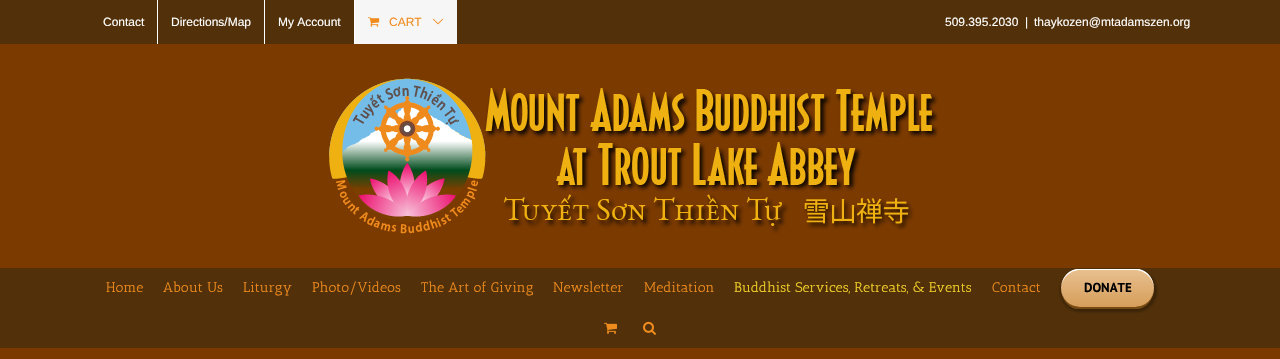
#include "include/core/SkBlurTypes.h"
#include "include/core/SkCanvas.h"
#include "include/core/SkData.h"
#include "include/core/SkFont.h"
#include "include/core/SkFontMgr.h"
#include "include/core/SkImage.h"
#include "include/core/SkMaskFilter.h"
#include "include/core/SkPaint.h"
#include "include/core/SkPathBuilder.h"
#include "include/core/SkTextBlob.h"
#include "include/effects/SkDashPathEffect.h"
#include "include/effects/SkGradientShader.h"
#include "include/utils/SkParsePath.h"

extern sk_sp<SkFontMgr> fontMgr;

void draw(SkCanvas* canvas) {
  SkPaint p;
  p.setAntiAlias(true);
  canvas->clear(SkColorSetRGB(123, 58, 0));
  p.setColor(SkColorSetRGB(82, 49, 10));
  canvas->drawRect(SkRect::MakeLTRB(0, 0, 1280, 44), p);
  p.setColor(SK_ColorWHITE);
  canvas->drawRect(SkRect::MakeLTRB(157, 0, 158, 44), p);
  canvas->drawRect(SkRect::MakeLTRB(264, 0, 265, 44), p);
  canvas->drawRect(SkRect::MakeLTRB(354, 0, 355, 44), p);
  p.setColor(SkColorSetRGB(246, 246, 246));
  canvas->drawRect(SkRect::MakeLTRB(355, 0, 457, 44), p);
  canvas->drawImageRect(SkImages::DeferredFromEncodedData(SkData::MakeFromFileName("images/1.png")), SkRect::MakeLTRB(368, 17, 380, 27), SkSamplingOptions());
  canvas->drawImageRect(SkImages::DeferredFromEncodedData(SkData::MakeFromFileName("images/2.png")), SkRect::MakeLTRB(432, 18, 444, 25), SkSamplingOptions());
  canvas->drawImageRect(SkImages::DeferredFromEncodedData(SkData::MakeFromFileName("images/3.png")), SkRect::MakeLTRB(329, 78, 938, 234), SkSamplingOptions());
  p.setColor(SkColorSetRGB(82, 49, 10));
  canvas->drawRect(SkRect::MakeLTRB(0, 268, 1280, 348), p);
  p.setColor(SkColorSetARGB(77, 0, 0, 0));
  p.setMaskFilter(SkMaskFilter::MakeBlur(kNormal_SkBlurStyle, 1.5f));
  canvas->drawRoundRect(SkRect::MakeLTRB(1060, 270, 1157, 312), 21, 21, p);
  p.setMaskFilter(nullptr);
  p.setColor(SkColorSetRGB(120, 73, 16));
  canvas->drawPath(SkPathBuilder().moveTo(1061, 289).cubicTo(1061, 298, 1067, 307, 1076, 309).lineTo(1089, 309).lineTo(1139, 309).cubicTo(1148, 307, 1154, 298, 1154, 289).cubicTo(1153, 299, 1145, 307, 1135, 307).lineTo(1080, 307).cubicTo(1070, 307, 1062, 299, 1061, 289).close().detach(), p);
  {
    const SkColor colors[] = {SkColorSetRGB(232, 192, 144), SkColorSetRGB(214, 158, 90)};
    const float stops[] = {0, 1};
    const SkPoint ends[] = {{1108, 269}, {1108, 307}};
    p.setShader(SkGradientShader::MakeLinear(ends, colors, stops, 2, SkTileMode::kClamp));
    p.setAlpha(255);
  }
  canvas->drawRoundRect(SkRect::MakeLTRB(1061, 269, 1154, 307), 19, 19, p);
  p.setShader(nullptr);
  p.setColor(SK_ColorWHITE);
  canvas->drawPath(SkPathBuilder().moveTo(1080, 270).lineTo(1135, 270).cubicTo(1145, 270, 1154, 279, 1154, 289).cubicTo(1154, 279, 1148, 271, 1139, 269).lineTo(1126, 269).lineTo(1076, 269).cubicTo(1067, 271, 1061, 279, 1061, 289).cubicTo(1061, 279, 1070, 270, 1080, 270).close().detach(), p);
  canvas->drawImageRect(SkImages::DeferredFromEncodedData(SkData::MakeFromFileName("images/4.png")), SkRect::MakeLTRB(604, 322, 617, 334), SkSamplingOptions());
  canvas->drawImageRect(SkImages::DeferredFromEncodedData(SkData::MakeFromFileName("images/5.png")), SkRect::MakeLTRB(643, 321, 656, 335), SkSamplingOptions());
  SkFont font1(fontMgr->matchFamilyStyle("Liberation Sans", SkFontStyle::Normal()), 12);
  font1.setSubpixel(true);
  canvas->drawString("Contact", 103, 26, font1, p);
  canvas->drawString("Directions/Map", 171, 26, font1, p);
  canvas->drawString("My Account", 278, 26, font1, p);
  p.setColor(SkColorSetRGB(240, 139, 29));
  canvas->drawString("CART", 389, 26, font1, p);
  p.setColor(SK_ColorWHITE);
  canvas->drawString("509.395.2030", 945, 26, font1, p);
  canvas->drawString("|", 1025, 26, font1, p);
  canvas->drawString("thaykozen@mtadamszen.org", 1034, 26, font1, p);
  SkFont font2(fontMgr->matchFamilyStyle("Antic Slab", SkFontStyle::Normal()), 14);
  font2.setSubpixel(true);
  p.setColor(SkColorSetRGB(240, 139, 29));
  canvas->drawString("Home", 106, 292, font2, p);
  canvas->drawString("About Us", 163, 292, font2, p);
  canvas->drawString("Liturgy", 243, 292, font2, p);
  canvas->drawString("Photo/Videos", 312, 292, font2, p);
  canvas->drawString("The Art of Giving", 421, 292, font2, p);
  canvas->drawString("Newsletter", 553, 292, font2, p);
  canvas->drawString("Meditation", 644, 292, font2, p);
  p.setColor(SkColorSetRGB(242, 208, 41));
  canvas->drawString("Buddhist Services, Retreats, & Events", 734, 292, font2, p);
  p.setColor(SkColorSetRGB(240, 139, 29));
  canvas->drawString("Contact", 992, 292, font2, p);
  SkFont font3(fontMgr->matchFamilyStyle("PT Sans", SkFontStyle::Bold()), 13);
  font3.setSubpixel(true);
  p.setColor(SK_ColorBLACK);
  canvas->drawString("DONATE", 1084, 292, font3, p);
}
